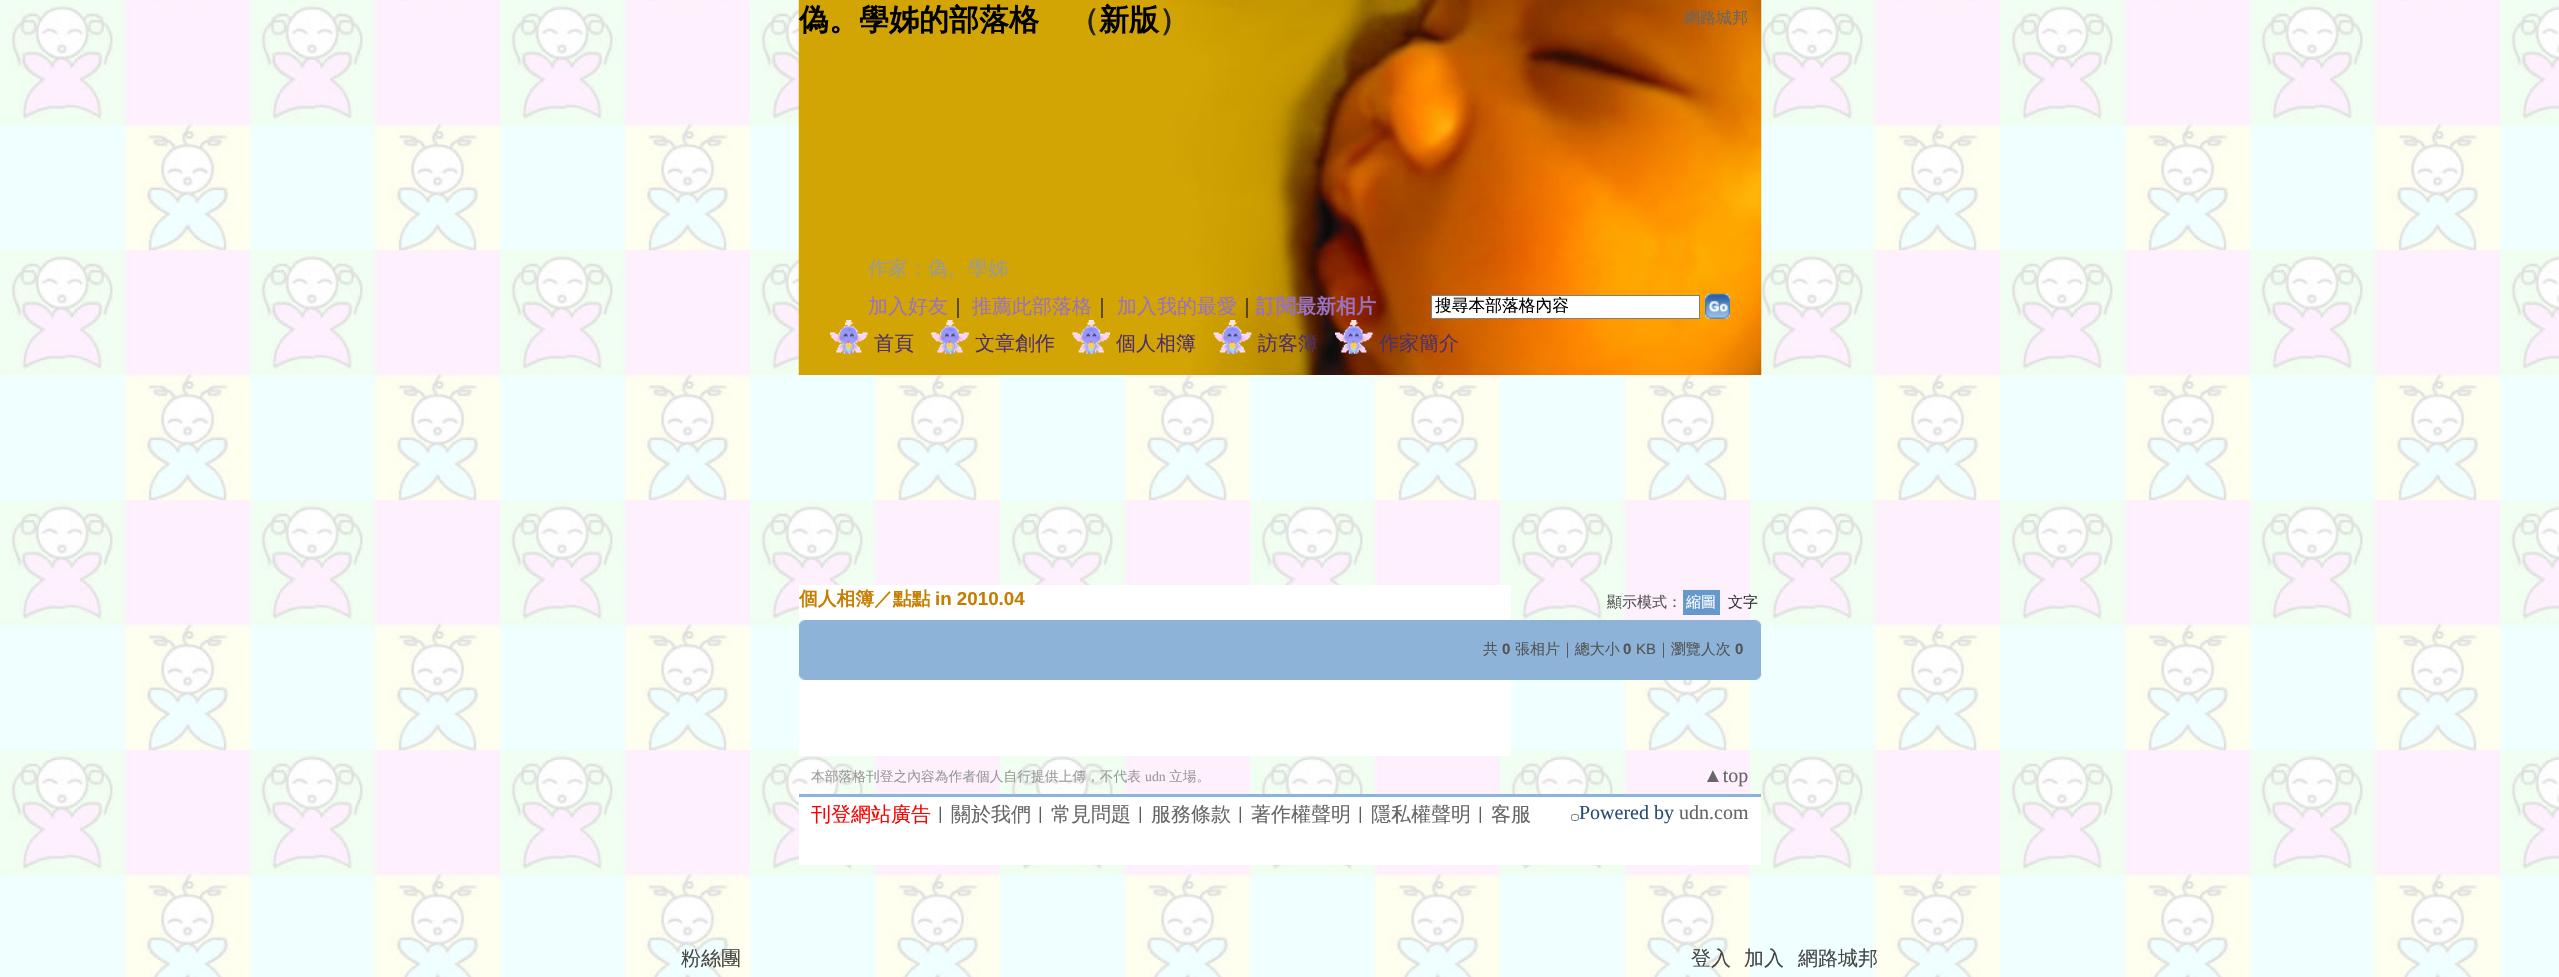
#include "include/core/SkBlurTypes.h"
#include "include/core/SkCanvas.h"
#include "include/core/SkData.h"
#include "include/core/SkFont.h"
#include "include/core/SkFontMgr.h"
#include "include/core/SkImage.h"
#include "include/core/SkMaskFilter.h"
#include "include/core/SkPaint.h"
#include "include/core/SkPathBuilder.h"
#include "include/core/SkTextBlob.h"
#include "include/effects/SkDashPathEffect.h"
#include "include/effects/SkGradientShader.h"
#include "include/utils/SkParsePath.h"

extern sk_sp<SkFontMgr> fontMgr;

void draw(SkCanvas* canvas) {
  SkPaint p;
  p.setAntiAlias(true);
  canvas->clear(SK_ColorWHITE);
  canvas->drawImageRect(SkImages::DeferredFromEncodedData(SkData::MakeFromFileName("images/1.png")), SkRect::MakeLTRB(0, 0, 2559, 977), SkSamplingOptions());
  canvas->drawImageRect(SkImages::DeferredFromEncodedData(SkData::MakeFromFileName("images/2.png")), SkRect::MakeLTRB(798, 0, 1762, 375), SkSamplingOptions());
  p.setColor(SK_ColorWHITE);
  canvas->drawRect(SkRect::MakeLTRB(1431.5f, 295.5f, 1699.5f, 318.5f), p);
  p.setStyle(SkPaint::kStroke_Style);
  p.setStrokeWidth(1);
  p.setColor(SkColorSetRGB(128, 128, 128));
  canvas->drawRect(SkRect::MakeLTRB(1431.5f, 295.5f, 1699.5f, 318.5f), p);
  canvas->drawImageRect(SkImages::DeferredFromEncodedData(SkData::MakeFromFileName("images/3.png")), SkRect::MakeLTRB(1705, 293, 1730, 319), SkSamplingOptions());
  canvas->drawImageRect(SkImages::DeferredFromEncodedData(SkData::MakeFromFileName("images/4.png")), SkRect::MakeLTRB(830, 320, 868, 354), SkSamplingOptions());
  canvas->drawImageRect(SkImages::DeferredFromEncodedData(SkData::MakeFromFileName("images/5.png")), SkRect::MakeLTRB(931, 320, 969, 354), SkSamplingOptions());
  canvas->drawImageRect(SkImages::DeferredFromEncodedData(SkData::MakeFromFileName("images/6.png")), SkRect::MakeLTRB(1072, 320, 1110, 354), SkSamplingOptions());
  canvas->drawImageRect(SkImages::DeferredFromEncodedData(SkData::MakeFromFileName("images/7.png")), SkRect::MakeLTRB(1213, 320, 1252, 354), SkSamplingOptions());
  canvas->drawImageRect(SkImages::DeferredFromEncodedData(SkData::MakeFromFileName("images/8.png")), SkRect::MakeLTRB(1335, 320, 1373, 354), SkSamplingOptions());
  p.setStyle(SkPaint::kFill_Style);
  p.setColor(SK_ColorWHITE);
  canvas->drawRect(SkRect::MakeLTRB(799, 585, 1511, 756), p);
  p.setColor(SkColorSetRGB(102, 152, 204));
  canvas->drawRect(SkRect::MakeLTRB(1683, 590, 1720, 615), p);
  p.setColor(SkColorSetRGB(141, 179, 217));
  canvas->drawRect(SkRect::MakeLTRB(799, 626, 1761, 674), p);
  canvas->drawImageRect(SkImages::DeferredFromEncodedData(SkData::MakeFromFileName("images/9.png")), SkRect::MakeLTRB(798, 620, 805, 627), SkSamplingOptions());
  canvas->drawRect(SkRect::MakeLTRB(805, 620, 1755, 626), p);
  canvas->drawImageRect(SkImages::DeferredFromEncodedData(SkData::MakeFromFileName("images/10.png")), SkRect::MakeLTRB(1755, 620, 1762, 627), SkSamplingOptions());
  canvas->drawImageRect(SkImages::DeferredFromEncodedData(SkData::MakeFromFileName("images/11.png")), SkRect::MakeLTRB(798, 673, 805, 680), SkSamplingOptions());
  canvas->drawRect(SkRect::MakeLTRB(805, 674, 1755, 680), p);
  canvas->drawImageRect(SkImages::DeferredFromEncodedData(SkData::MakeFromFileName("images/12.png")), SkRect::MakeLTRB(1755, 673, 1762, 680), SkSamplingOptions());
  p.setColor(SK_ColorWHITE);
  canvas->drawRect(SkRect::MakeLTRB(799, 797, 1761, 865), p);
  p.setColor(SkColorSetRGB(141, 179, 217));
  canvas->drawRect(SkRect::MakeLTRB(799, 794, 1761, 797), p);
  p.setStyle(SkPaint::kStroke_Style);
  p.setColor(SkColorSetRGB(118, 118, 118));
  canvas->drawRoundRect(SkRect::MakeLTRB(1571.5f, 814.5f, 1578.5f, 820.5f), 2, 2, p);
  SkFont font1(fontMgr->matchFamilyStyle("WenQuanYi Zen Hei", SkFontStyle::Bold()), 30);
  font1.setSubpixel(true);
  p.setStyle(SkPaint::kFill_Style);
  p.setColor(SK_ColorBLACK);
  canvas->drawString("偽。學姊的部落格", 799, 30, font1, p);
  p.setColor(SkColorSetRGB(35, 35, 35));
  canvas->drawString("（", 1069, 30, font1, p);
  p.setColor(SK_ColorBLACK);
  canvas->drawString("新版", 1099, 30, font1, p);
  p.setColor(SkColorSetRGB(35, 35, 35));
  canvas->drawString("）", 1159, 30, font1, p);
  SkFont font2(fontMgr->matchFamilyStyle("WenQuanYi Zen Hei", SkFontStyle(500, SkFontStyle::kNormal_Width, SkFontStyle::kUpright_Slant)), 20);
  font2.setSubpixel(true);
  p.setColor(SkColorSetRGB(153, 153, 153));
  canvas->drawString("作家：偽。學姊", 868, 275, font2, p);
  p.setColor(SkColorSetRGB(153, 113, 194));
  canvas->drawString("加入好友", 868, 313, font2, p);
  p.setColor(SkColorSetRGB(35, 35, 35));
  canvas->drawString("｜", 948, 313, font2, p);
  p.setColor(SkColorSetRGB(153, 113, 194));
  canvas->drawString("推薦此部落格", 972, 313, font2, p);
  p.setColor(SkColorSetRGB(35, 35, 35));
  canvas->drawString("｜", 1092, 313, font2, p);
  p.setColor(SkColorSetRGB(153, 113, 194));
  canvas->drawString("加入我的最愛", 1117, 313, font2, p);
  p.setColor(SkColorSetRGB(35, 35, 35));
  canvas->drawString("｜", 1237, 313, font2, p);
  SkFont font3(fontMgr->matchFamilyStyle("WenQuanYi Zen Hei", SkFontStyle::Bold()), 20);
  font3.setSubpixel(true);
  p.setColor(SkColorSetRGB(153, 113, 194));
  canvas->drawString("訂閱最新相片", 1256, 313, font3, p);
  SkFont font4(fontMgr->matchFamilyStyle("WenQuanYi Zen Hei", SkFontStyle(500, SkFontStyle::kNormal_Width, SkFontStyle::kUpright_Slant)), 16.75f);
  font4.setSubpixel(true);
  p.setColor(SK_ColorBLACK);
  canvas->drawString("搜尋本部落格內容", 1435, 311, font4, p);
  p.setColor(SkColorSetRGB(77, 47, 108));
  canvas->drawString("首頁", 874, 350, font2, p);
  canvas->drawString("文章創作", 975, 350, font2, p);
  canvas->drawString("個人相簿", 1116, 350, font2, p);
  canvas->drawString("訪客簿", 1258, 350, font2, p);
  canvas->drawString("作家簡介", 1379, 350, font2, p);
  SkFont font5(fontMgr->matchFamilyStyle("WenQuanYi Zen Hei", SkFontStyle(500, SkFontStyle::kNormal_Width, SkFontStyle::kUpright_Slant)), 16);
  font5.setSubpixel(true);
  p.setColor(SkColorSetRGB(102, 102, 102));
  canvas->drawString("網路城邦", 1684, 23, font5, p);
  SkFont font6(fontMgr->matchFamilyStyle("WenQuanYi Zen Hei", SkFontStyle::Bold()), 18.75f);
  font6.setSubpixel(true);
  p.setColor(SkColorSetRGB(199, 126, 0));
  canvas->drawString("個人相簿／點點", 799, 605, font6, p);
  SkFont font7(fontMgr->matchFamilyStyle("Liberation Sans", SkFontStyle::Bold()), 18.75f);
  font7.setSubpixel(true);
  canvas->drawString("in 2010.04", 935, 605, font7, p);
  SkFont font8(fontMgr->matchFamilyStyle("WenQuanYi Zen Hei", SkFontStyle(500, SkFontStyle::kNormal_Width, SkFontStyle::kUpright_Slant)), 15);
  font8.setSubpixel(true);
  p.setColor(SkColorSetRGB(83, 83, 83));
  canvas->drawString("顯示模式：", 1607, 607, font8, p);
  p.setColor(SK_ColorWHITE);
  canvas->drawString("縮圖", 1686, 607, font8, p);
  p.setColor(SkColorSetRGB(51, 51, 51));
  canvas->drawString("文字", 1728, 607, font8, p);
  p.setColor(SkColorSetRGB(83, 83, 83));
  canvas->drawString("共", 1483, 654, font8, p);
  SkFont font9(fontMgr->matchFamilyStyle("Liberation Sans", SkFontStyle::Bold()), 15);
  font9.setSubpixel(true);
  canvas->drawString("0", 1502, 654, font9, p);
  canvas->drawString("張相片｜總大小", 1515, 654, font8, p);
  canvas->drawString("0", 1623, 654, font9, p);
  SkFont font10(fontMgr->matchFamilyStyle("Liberation Sans", SkFontStyle::Normal()), 15);
  font10.setSubpixel(true);
  canvas->drawString("KB", 1636, 654, font10, p);
  canvas->drawString("｜瀏覽人次", 1656, 654, font8, p);
  canvas->drawString("0", 1735, 654, font9, p);
  SkFont font11(fontMgr->matchFamilyStyle("WenQuanYi Zen Hei", SkFontStyle(500, SkFontStyle::kNormal_Width, SkFontStyle::kUpright_Slant)), 13.75f);
  font11.setSubpixel(true);
  p.setColor(SkColorSetRGB(153, 153, 153));
  canvas->drawString("本部落格刊登之內容為作者個人自行提供上傳，不代表", 811, 781, font11, p);
  SkFont font12(fontMgr->matchFamilyStyle("Liberation Serif", SkFontStyle::Normal()), 13.75f);
  font12.setSubpixel(true);
  canvas->drawString("udn", 1145, 781, font12, p);
  canvas->drawString("立場。", 1169, 781, font11, p);
  SkFont font13(fontMgr->matchFamilyStyle("Liberation Serif", SkFontStyle::Normal()), 20);
  font13.setSubpixel(true);
  p.setColor(SkColorSetRGB(102, 102, 102));
  canvas->drawString("▲top", 1703, 782, font13, p);
  p.setColor(SkColorSetRGB(255, 0, 0));
  canvas->drawString("刊登網站廣告", 811, 821, font2, p);
  p.setColor(SkColorSetRGB(35, 35, 35));
  canvas->drawString("︱", 931, 821, font2, p);
  p.setColor(SkColorSetRGB(102, 102, 102));
  canvas->drawString("關於我們", 951, 821, font2, p);
  p.setColor(SkColorSetRGB(35, 35, 35));
  canvas->drawString("︱", 1031, 821, font2, p);
  p.setColor(SkColorSetRGB(102, 102, 102));
  canvas->drawString("常見問題", 1051, 821, font2, p);
  p.setColor(SkColorSetRGB(35, 35, 35));
  canvas->drawString("︱", 1131, 821, font2, p);
  p.setColor(SkColorSetRGB(102, 102, 102));
  canvas->drawString("服務條款", 1151, 821, font2, p);
  p.setColor(SkColorSetRGB(35, 35, 35));
  canvas->drawString("︱", 1231, 821, font2, p);
  p.setColor(SkColorSetRGB(102, 102, 102));
  canvas->drawString("著作權聲明", 1251, 821, font2, p);
  p.setColor(SkColorSetRGB(35, 35, 35));
  canvas->drawString("︱", 1351, 821, font2, p);
  p.setColor(SkColorSetRGB(102, 102, 102));
  canvas->drawString("隱私權聲明", 1371, 821, font2, p);
  p.setColor(SkColorSetRGB(35, 35, 35));
  canvas->drawString("︱", 1471, 821, font2, p);
  p.setColor(SkColorSetRGB(102, 102, 102));
  canvas->drawString("客服", 1491, 821, font2, p);
  p.setColor(SkColorSetRGB(39, 77, 116));
  canvas->drawString("Powered by", 1579, 819, font13, p);
  p.setColor(SkColorSetRGB(102, 102, 102));
  canvas->drawString("udn.com", 1679, 819, font13, p);
  p.setColor(SkColorSetRGB(68, 68, 68));
  canvas->drawString("粉絲團", 681, 965, font2, p);
  canvas->drawString("登入", 1691, 965, font2, p);
  canvas->drawString("加入", 1744, 965, font2, p);
  canvas->drawString("網路城邦", 1798, 965, font2, p);
}
